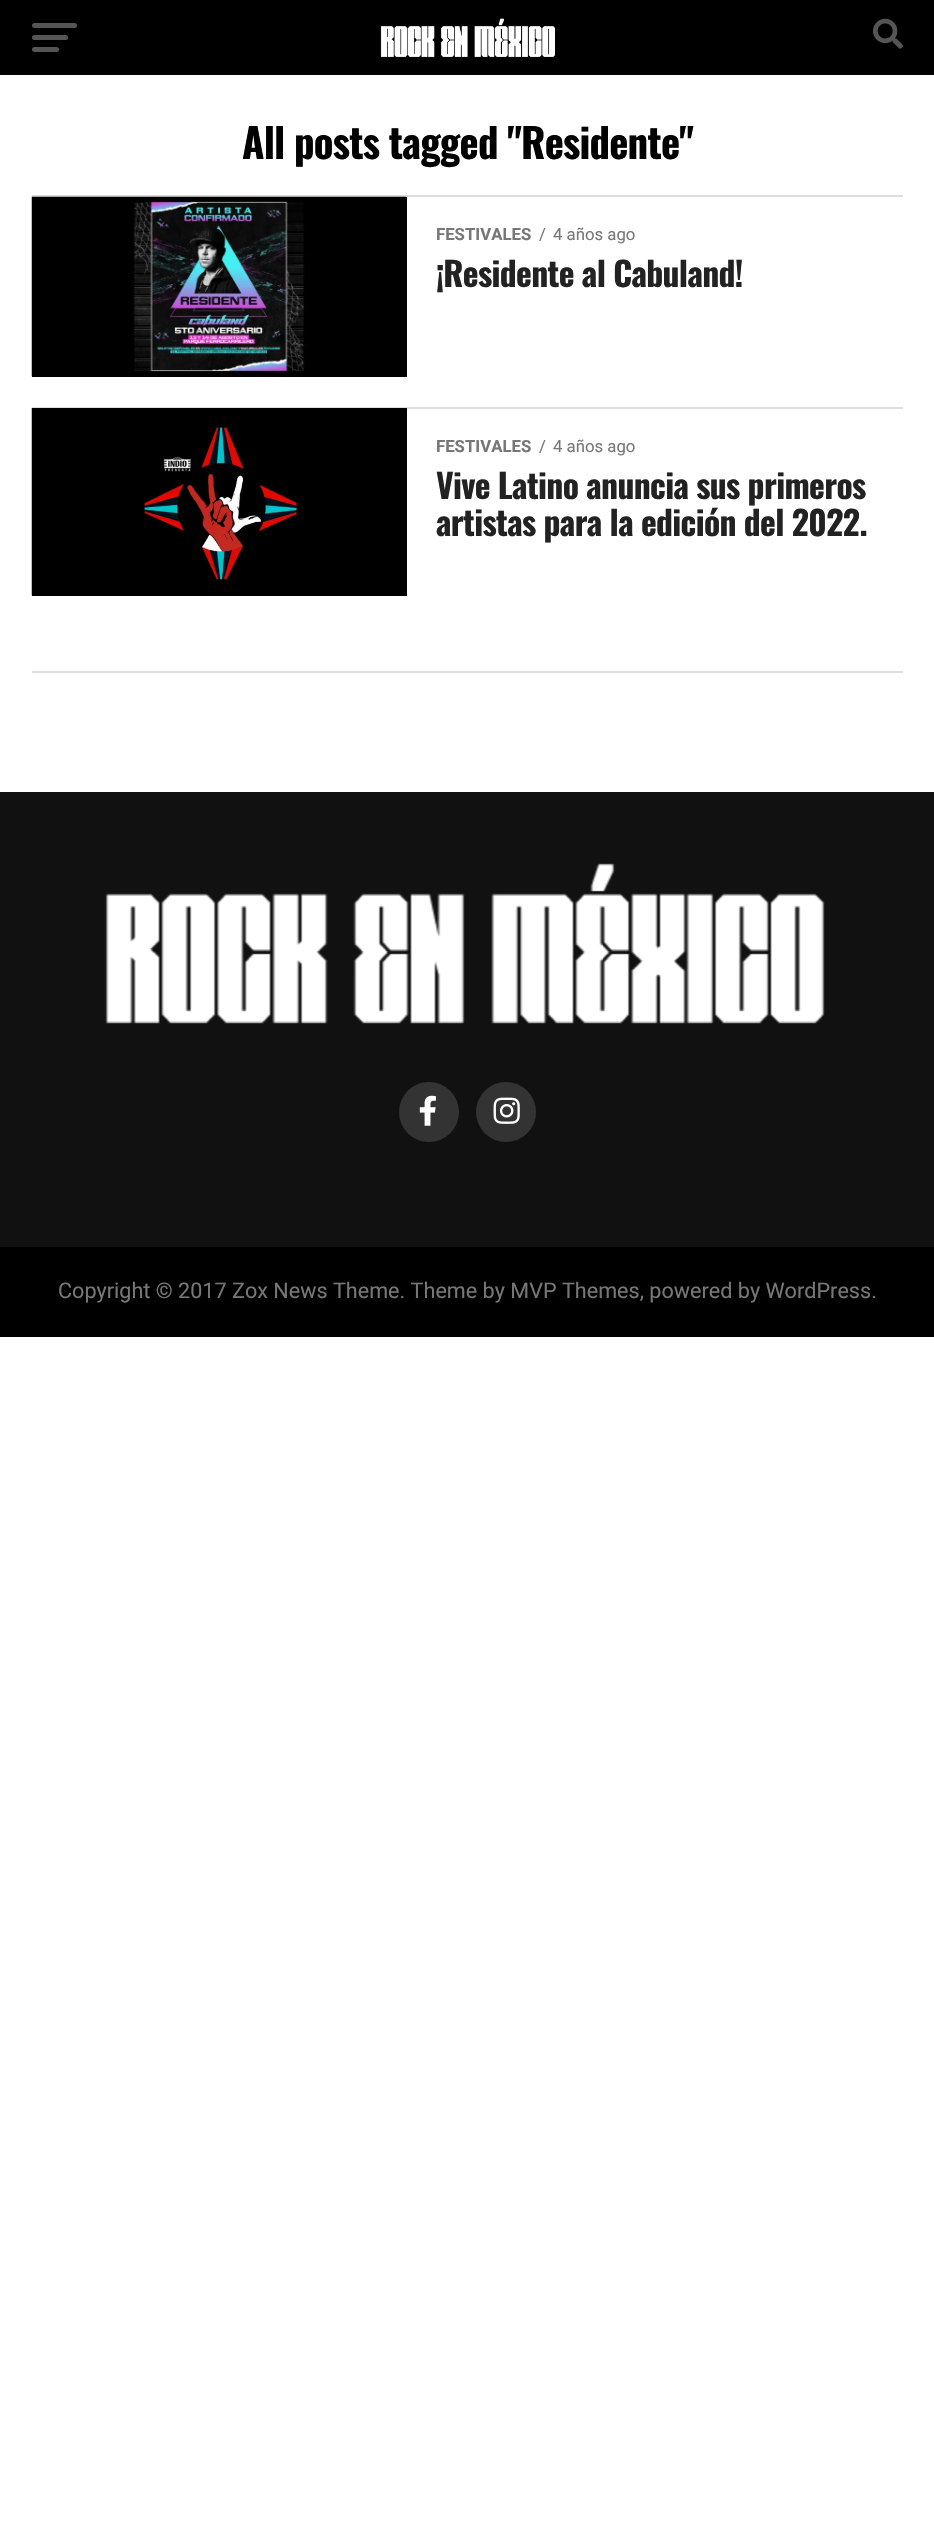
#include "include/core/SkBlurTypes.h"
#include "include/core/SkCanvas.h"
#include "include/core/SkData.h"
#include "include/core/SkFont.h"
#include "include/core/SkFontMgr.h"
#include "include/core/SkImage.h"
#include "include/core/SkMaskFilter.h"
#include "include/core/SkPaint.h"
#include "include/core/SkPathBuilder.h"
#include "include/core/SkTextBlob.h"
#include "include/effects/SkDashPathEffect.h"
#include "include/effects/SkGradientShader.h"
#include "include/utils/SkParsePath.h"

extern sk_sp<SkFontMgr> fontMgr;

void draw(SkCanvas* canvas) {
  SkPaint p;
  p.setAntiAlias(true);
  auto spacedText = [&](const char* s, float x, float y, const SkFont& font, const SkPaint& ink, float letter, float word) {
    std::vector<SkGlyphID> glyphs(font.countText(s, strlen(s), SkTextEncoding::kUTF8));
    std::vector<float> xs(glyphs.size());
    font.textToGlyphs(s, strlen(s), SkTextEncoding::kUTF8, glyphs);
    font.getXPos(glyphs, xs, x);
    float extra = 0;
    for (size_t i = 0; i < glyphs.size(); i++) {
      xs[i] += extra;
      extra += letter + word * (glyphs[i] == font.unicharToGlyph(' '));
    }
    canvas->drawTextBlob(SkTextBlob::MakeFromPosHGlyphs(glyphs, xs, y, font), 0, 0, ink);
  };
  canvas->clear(SK_ColorWHITE);
  p.setColor(SK_ColorBLACK);
  canvas->drawRect(SkRect::MakeLTRB(0, 0, 934, 75), p);
  p.setColor(SkColorSetRGB(85, 85, 85));
  canvas->drawRoundRect(SkRect::MakeLTRB(32, 23, 77, 28), 2.5f, 2.5f, p);
  canvas->drawRoundRect(SkRect::MakeLTRB(32, 35, 68, 40), 2.5f, 2.5f, p);
  canvas->drawRoundRect(SkRect::MakeLTRB(32, 47, 59, 52), 2.5f, 2.5f, p);
  canvas->drawImageRect(SkImages::DeferredFromEncodedData(SkData::MakeFromFileName("images/1.png")), SkRect::MakeLTRB(380, 18, 555, 57), SkSamplingOptions());
  canvas->drawImageRect(SkImages::DeferredFromEncodedData(SkData::MakeFromFileName("images/2.png")), SkRect::MakeLTRB(873, 18, 903, 49), SkSamplingOptions());
  p.setColor(SkColorSetRGB(221, 221, 221));
  canvas->drawRect(SkRect::MakeLTRB(32, 195, 903, 197), p);
  p.setColor(SK_ColorBLACK);
  canvas->drawRect(SkRect::MakeLTRB(32, 197, 407, 377), p);
  canvas->drawImageRect(SkImages::DeferredFromEncodedData(SkData::MakeFromFileName("images/3.png")), SkRect::MakeLTRB(31, 196, 407, 377), SkSamplingOptions());
  p.setColor(SkColorSetRGB(221, 221, 221));
  canvas->drawRect(SkRect::MakeLTRB(32, 407, 903, 409), p);
  p.setColor(SK_ColorBLACK);
  canvas->drawRect(SkRect::MakeLTRB(32, 408, 407, 596), p);
  canvas->drawImageRect(SkImages::DeferredFromEncodedData(SkData::MakeFromFileName("images/4.png")), SkRect::MakeLTRB(31, 408, 299, 596), SkSamplingOptions());
  p.setColor(SkColorSetRGB(221, 221, 221));
  canvas->drawRect(SkRect::MakeLTRB(32, 671, 903, 673), p);
  p.setColor(SkColorSetRGB(17, 17, 17));
  canvas->drawRect(SkRect::MakeLTRB(0, 792, 934, 1247), p);
  canvas->drawImageRect(SkImages::DeferredFromEncodedData(SkData::MakeFromFileName("images/5.png")), SkRect::MakeLTRB(105, 863, 825, 1024), SkSamplingOptions());
  p.setColor(SkColorSetRGB(51, 51, 51));
  canvas->drawCircle(429, 1112, 30, p);
  canvas->drawImageRect(SkImages::DeferredFromEncodedData(SkData::MakeFromFileName("images/6.png")), SkRect::MakeLTRB(419, 1095, 436, 1126), SkSamplingOptions());
  canvas->drawCircle(506, 1112, 30, p);
  canvas->drawImageRect(SkImages::DeferredFromEncodedData(SkData::MakeFromFileName("images/7.png")), SkRect::MakeLTRB(493, 1097, 520, 1124), SkSamplingOptions());
  p.setColor(SK_ColorBLACK);
  canvas->drawRect(SkRect::MakeLTRB(0, 1247, 934, 1337), p);
  SkFont font1(fontMgr->matchFamilyStyle("Oswald", SkFontStyle::Bold()), 40.75f);
  font1.setSubpixel(true);
  spacedText("All posts tagged \"Residente\"", 242, 159, font1, p, -0.8f, 0);
  SkFont font2(fontMgr->matchFamilyStyle("Roboto", SkFontStyle::Bold()), 16.75f);
  font2.setSubpixel(true);
  p.setColor(SkColorSetRGB(119, 119, 119));
  canvas->drawString("FESTIVALES", 436, 240, font2, p);
  SkFont font3(fontMgr->matchFamilyStyle("Roboto", SkFontStyle::Normal()), 16.75f);
  font3.setSubpixel(true);
  canvas->drawString("/", 539, 240, font3, p);
  canvas->drawString("4 años ago", 553, 240, font3, p);
  SkFont font4(fontMgr->matchFamilyStyle("Oswald", SkFontStyle::Bold()), 33.6f);
  font4.setSubpixel(true);
  p.setColor(SkColorSetRGB(34, 34, 34));
  spacedText("¡Residente al Cabuland!", 436, 287, font4, p, -0.65f, 0);
  p.setColor(SkColorSetRGB(119, 119, 119));
  canvas->drawString("FESTIVALES", 436, 452, font2, p);
  canvas->drawString("/", 539, 452, font3, p);
  canvas->drawString("4 años ago", 553, 452, font3, p);
  p.setColor(SkColorSetRGB(34, 34, 34));
  spacedText("Vive Latino anuncia sus primeros", 436, 499, font4, p, -0.65f, 0);
  spacedText("artistas para la edición del 2022.", 436, 536, font4, p, -0.65f, 0);
  SkFont font5(fontMgr->matchFamilyStyle("Roboto", SkFontStyle::Normal()), 21.6f);
  font5.setSubpixel(true);
  p.setColor(SkColorSetRGB(119, 119, 119));
  canvas->drawString("Copyright © 2017 Zox News Theme. Theme by MVP Themes, powered by WordPress.", 58, 1298, font5, p);
}
